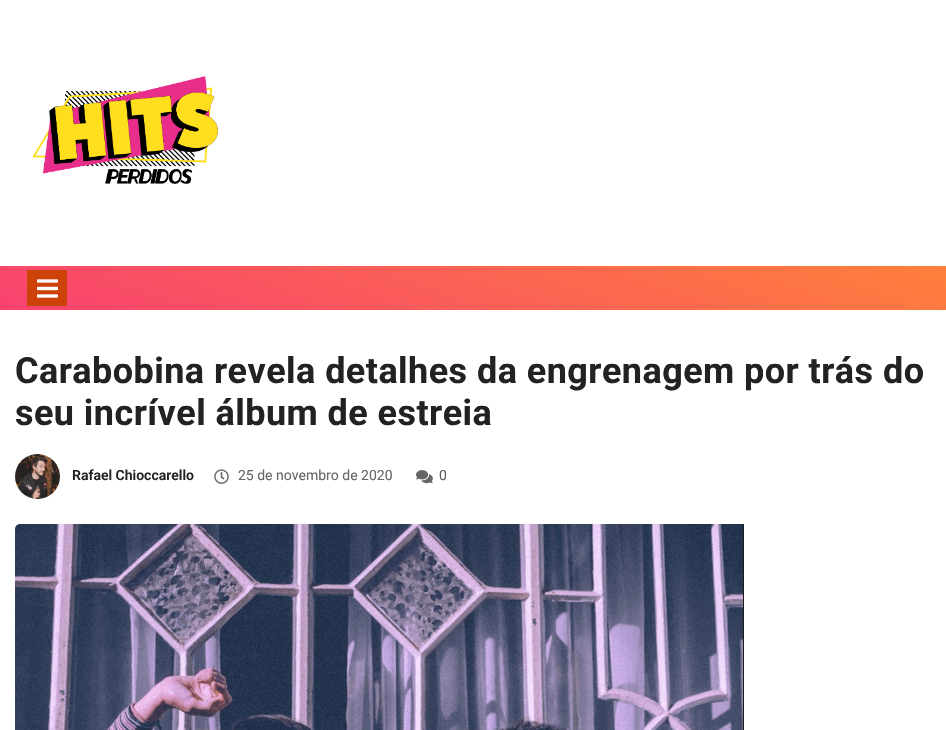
#include "include/core/SkBlurTypes.h"
#include "include/core/SkCanvas.h"
#include "include/core/SkData.h"
#include "include/core/SkFont.h"
#include "include/core/SkFontMgr.h"
#include "include/core/SkImage.h"
#include "include/core/SkMaskFilter.h"
#include "include/core/SkPaint.h"
#include "include/core/SkPathBuilder.h"
#include "include/core/SkTextBlob.h"
#include "include/effects/SkDashPathEffect.h"
#include "include/effects/SkGradientShader.h"
#include "include/utils/SkParsePath.h"

extern sk_sp<SkFontMgr> fontMgr;

void draw(SkCanvas* canvas) {
  SkPaint p;
  p.setAntiAlias(true);
  auto spacedText = [&](const char* s, float x, float y, const SkFont& font, const SkPaint& ink, float letter, float word) {
    std::vector<SkGlyphID> glyphs(font.countText(s, strlen(s), SkTextEncoding::kUTF8));
    std::vector<float> xs(glyphs.size());
    font.textToGlyphs(s, strlen(s), SkTextEncoding::kUTF8, glyphs);
    font.getXPos(glyphs, xs, x);
    float extra = 0;
    for (size_t i = 0; i < glyphs.size(); i++) {
      xs[i] += extra;
      extra += letter + word * (glyphs[i] == font.unicharToGlyph(' '));
    }
    canvas->drawTextBlob(SkTextBlob::MakeFromPosHGlyphs(glyphs, xs, y, font), 0, 0, ink);
  };
  canvas->clear(SK_ColorWHITE);
  canvas->drawImageRect(SkImages::DeferredFromEncodedData(SkData::MakeFromFileName("images/1.png")), SkRect::MakeLTRB(32, 76, 219, 184), SkSamplingOptions());
  {
    const SkColor colors[] = {SkColorSetRGB(248, 66, 112), SkColorSetRGB(254, 128, 59)};
    const float stops[] = {0, 1};
    const SkPoint ends[] = {{411, 459}, {535, 117}};
    p.setShader(SkGradientShader::MakeLinear(ends, colors, stops, 2, SkTileMode::kClamp));
    p.setAlpha(255);
  }
  canvas->drawRect(SkRect::MakeLTRB(0, 266, 946, 310), p);
  p.setShader(nullptr);
  p.setColor(SkColorSetRGB(204, 66, 9));
  canvas->drawRect(SkRect::MakeLTRB(27, 270, 67, 306), p);
  canvas->drawImageRect(SkImages::DeferredFromEncodedData(SkData::MakeFromFileName("images/2.png")), SkRect::MakeLTRB(37, 279, 58, 298), SkSamplingOptions());
  canvas->drawImageRect(SkImages::DeferredFromEncodedData(SkData::MakeFromFileName("images/3.png")), SkRect::MakeLTRB(15, 454, 60, 499), SkSamplingOptions());
  canvas->drawImageRect(SkImages::DeferredFromEncodedData(SkData::MakeFromFileName("images/4.png")), SkRect::MakeLTRB(214, 469, 229, 484), SkSamplingOptions());
  canvas->drawImageRect(SkImages::DeferredFromEncodedData(SkData::MakeFromFileName("images/5.png")), SkRect::MakeLTRB(416, 470, 433, 484), SkSamplingOptions());
  canvas->drawImageRect(SkImages::DeferredFromEncodedData(SkData::MakeFromFileName("images/6.png")), SkRect::MakeLTRB(15, 524, 744, 730), SkSamplingOptions());
  SkFont font1(fontMgr->matchFamilyStyle("Roboto", SkFontStyle::Bold()), 36);
  font1.setSubpixel(true);
  p.setColor(SkColorSetRGB(34, 34, 34));
  spacedText("Carabobina revela detalhes da engrenagem por trás do", 15, 383, font1, p, 0.45f, 0);
  spacedText("seu incrível álbum de estreia", 15, 425, font1, p, 0.45f, 0);
  SkFont font2(fontMgr->matchFamilyStyle("Roboto", SkFontStyle(600, SkFontStyle::kNormal_Width, SkFontStyle::kUpright_Slant)), 14);
  font2.setSubpixel(true);
  canvas->drawString("Rafael Chioccarello", 72, 480, font2, p);
  SkFont font3(fontMgr->matchFamilyStyle("Roboto", SkFontStyle::Normal()), 14);
  font3.setSubpixel(true);
  p.setColor(SkColorSetRGB(102, 102, 102));
  canvas->drawString("25 de novembro de 2020", 238, 480, font3, p);
  p.setColor(SkColorSetRGB(92, 92, 92));
  canvas->drawString("0", 439, 480, font3, p);
}
